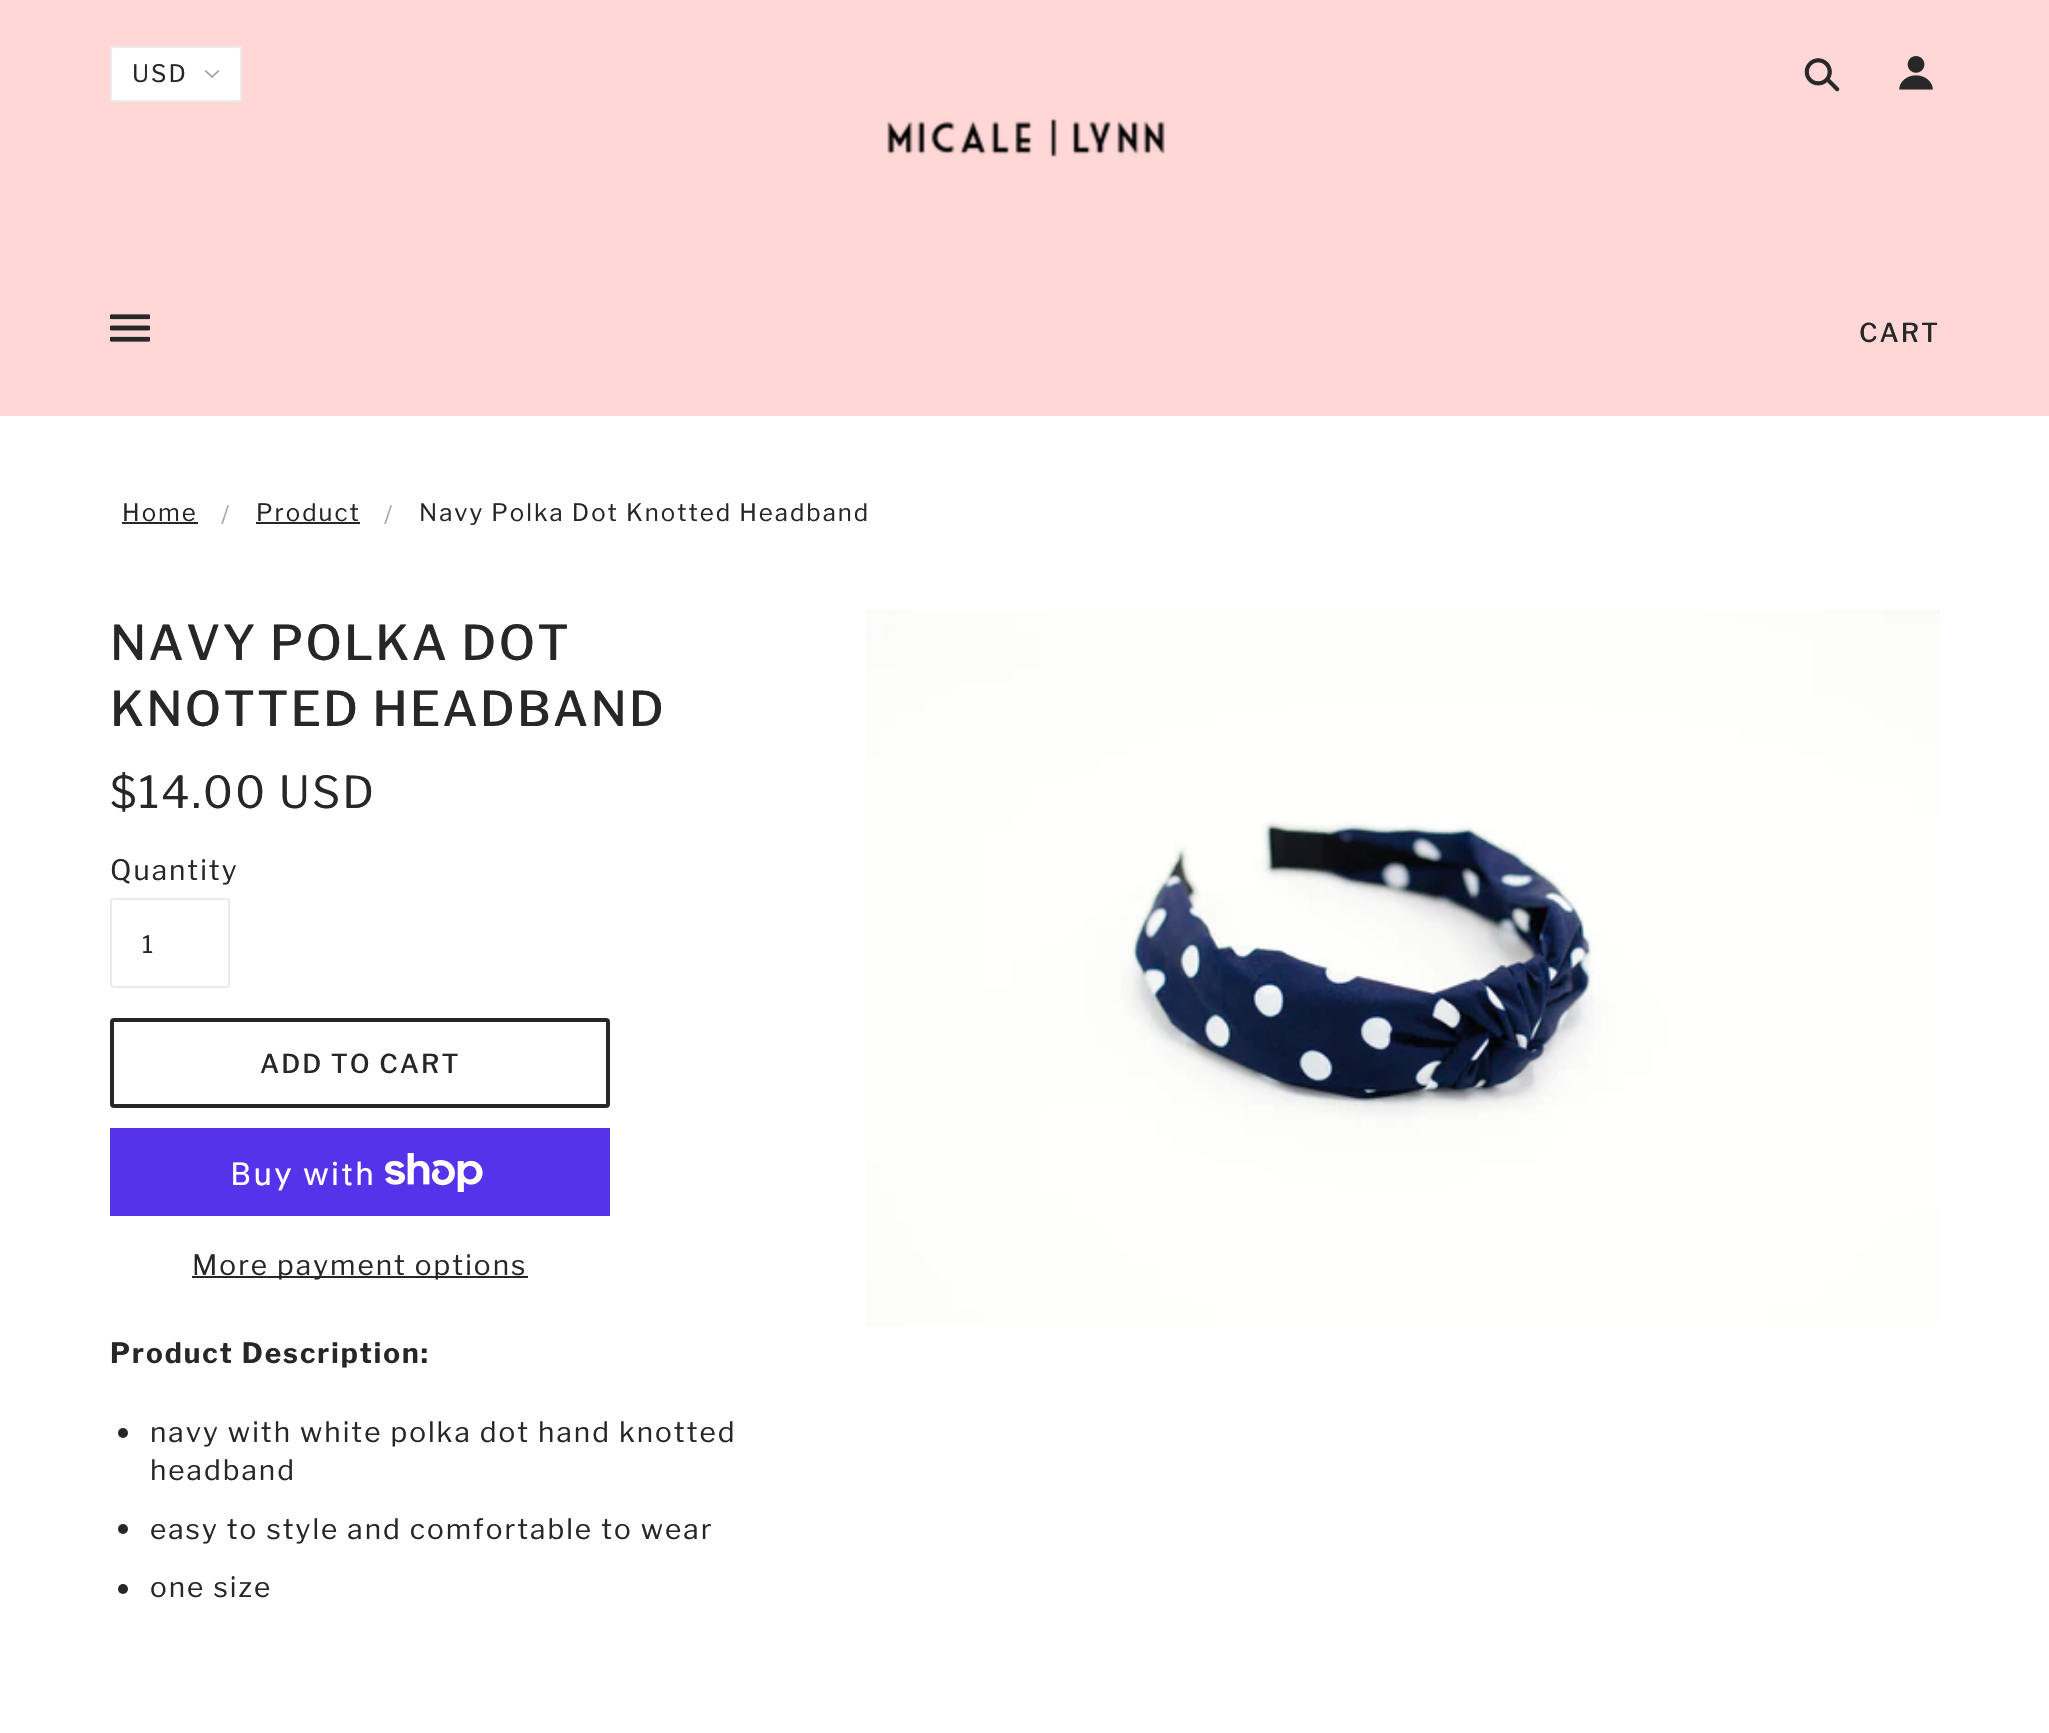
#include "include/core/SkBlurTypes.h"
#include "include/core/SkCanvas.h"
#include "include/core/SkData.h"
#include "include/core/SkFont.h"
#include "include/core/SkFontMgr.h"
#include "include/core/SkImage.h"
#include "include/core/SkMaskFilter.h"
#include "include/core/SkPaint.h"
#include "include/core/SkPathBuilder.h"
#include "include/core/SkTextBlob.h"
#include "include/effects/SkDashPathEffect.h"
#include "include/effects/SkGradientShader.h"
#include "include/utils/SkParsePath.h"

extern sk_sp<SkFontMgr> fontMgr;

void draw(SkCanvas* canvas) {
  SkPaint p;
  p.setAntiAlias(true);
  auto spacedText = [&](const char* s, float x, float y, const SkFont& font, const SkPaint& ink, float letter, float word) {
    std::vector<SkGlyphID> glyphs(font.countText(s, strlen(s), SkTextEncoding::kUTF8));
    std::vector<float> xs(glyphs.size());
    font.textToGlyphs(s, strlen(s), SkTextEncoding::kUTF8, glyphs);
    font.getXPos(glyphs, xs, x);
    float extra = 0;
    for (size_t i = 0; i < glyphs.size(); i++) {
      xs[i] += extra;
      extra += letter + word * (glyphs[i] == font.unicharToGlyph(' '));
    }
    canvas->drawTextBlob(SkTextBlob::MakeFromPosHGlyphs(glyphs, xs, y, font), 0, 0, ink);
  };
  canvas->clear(SK_ColorWHITE);
  p.setColor(SkColorSetRGB(255, 215, 215));
  canvas->drawRect(SkRect::MakeLTRB(0, 0, 2049, 416), p);
  p.setColor(SK_ColorWHITE);
  canvas->drawRoundRect(SkRect::MakeLTRB(110, 46, 242, 102), 4, 4, p);
  canvas->drawImageRect(SkImages::DeferredFromEncodedData(SkData::MakeFromFileName("images/1.png")), SkRect::MakeLTRB(204, 70, 220, 78), SkSamplingOptions());
  p.setStyle(SkPaint::kStroke_Style);
  p.setStrokeWidth(2);
  p.setColor(SkColorSetRGB(235, 235, 235));
  canvas->drawRoundRect(SkRect::MakeLTRB(111, 47, 241, 101), 3, 3, p);
  canvas->drawImageRect(SkImages::DeferredFromEncodedData(SkData::MakeFromFileName("images/2.png")), SkRect::MakeLTRB(1804, 58, 1840, 92), SkSamplingOptions());
  canvas->drawImageRect(SkImages::DeferredFromEncodedData(SkData::MakeFromFileName("images/3.png")), SkRect::MakeLTRB(1899, 56, 1933, 90), SkSamplingOptions());
  canvas->drawImageRect(SkImages::DeferredFromEncodedData(SkData::MakeFromFileName("images/4.png")), SkRect::MakeLTRB(887, 118, 1165, 157), SkSamplingOptions());
  canvas->drawImageRect(SkImages::DeferredFromEncodedData(SkData::MakeFromFileName("images/5.png")), SkRect::MakeLTRB(110, 314, 150, 342), SkSamplingOptions());
  p.setStyle(SkPaint::kFill_Style);
  p.setColor(SkColorSetRGB(39, 39, 39));
  canvas->drawRect(SkRect::MakeLTRB(122, 522, 198, 524), p);
  canvas->drawRect(SkRect::MakeLTRB(256, 522, 360, 524), p);
  canvas->drawImageRect(SkImages::DeferredFromEncodedData(SkData::MakeFromFileName("images/6.png")), SkRect::MakeLTRB(866, 610, 1940, 1326), SkSamplingOptions());
  p.setStyle(SkPaint::kStroke_Style);
  p.setColor(SkColorSetRGB(235, 235, 235));
  canvas->drawRoundRect(SkRect::MakeLTRB(111, 899, 229, 987), 3, 3, p);
  p.setStrokeWidth(4);
  p.setColor(SkColorSetRGB(39, 39, 39));
  canvas->drawRoundRect(SkRect::MakeLTRB(112, 1020, 608, 1106), 2, 2, p);
  p.setStyle(SkPaint::kFill_Style);
  p.setColor(SkColorSetRGB(84, 51, 235));
  canvas->drawRect(SkRect::MakeLTRB(110, 1128, 610, 1216), p);
  canvas->drawImageRect(SkImages::DeferredFromEncodedData(SkData::MakeFromFileName("images/7.png")), SkRect::MakeLTRB(385, 1153, 483, 1192), SkSamplingOptions());
  p.setColor(SkColorSetRGB(39, 39, 39));
  canvas->drawRect(SkRect::MakeLTRB(192, 1276, 528, 1278), p);
  canvas->drawCircle(123, 1433, 5, p);
  canvas->drawCircle(123, 1529, 5, p);
  canvas->drawCircle(123, 1589, 5, p);
  SkFont font1(fontMgr->matchFamilyStyle("Libre Franklin", SkFontStyle::Normal()), 24);
  font1.setSubpixel(true);
  spacedText("USD", 132, 82, font1, p, 2, 0);
  SkFont font2(fontMgr->matchFamilyStyle("Libre Franklin", SkFontStyle(500, SkFontStyle::kNormal_Width, SkFontStyle::kUpright_Slant)), 26);
  font2.setSubpixel(true);
  spacedText("CART", 1859, 342, font2, p, 2, 0);
  spacedText("Home", 122, 521, font1, p, 2, 0);
  p.setColor(SkColorSetRGB(170, 170, 170));
  spacedText("/", 221, 523, font1, p, 2, 0);
  p.setColor(SkColorSetRGB(39, 39, 39));
  spacedText("Product", 256, 521, font1, p, 2, 0);
  p.setColor(SkColorSetRGB(170, 170, 170));
  spacedText("/", 384, 523, font1, p, 2, 0);
  p.setColor(SkColorSetRGB(39, 39, 39));
  spacedText("Navy Polka Dot Knotted Headband", 419, 521, font1, p, 2, 0);
  SkFont font3(fontMgr->matchFamilyStyle("Libre Franklin", SkFontStyle(500, SkFontStyle::kNormal_Width, SkFontStyle::kUpright_Slant)), 48);
  font3.setSubpixel(true);
  spacedText("NAVY POLKA DOT", 110, 660, font3, p, 2, 0);
  spacedText("KNOTTED HEADBAND", 110, 726, font3, p, 2, 0);
  SkFont font4(fontMgr->matchFamilyStyle("Libre Franklin", SkFontStyle::Normal()), 44);
  font4.setSubpixel(true);
  spacedText("$14.00 USD", 110, 808, font4, p, 2, 0);
  SkFont font5(fontMgr->matchFamilyStyle("Libre Franklin", SkFontStyle::Normal()), 28);
  font5.setSubpixel(true);
  spacedText("Quantity", 110, 880, font5, p, 2, 0);
  spacedText("1", 142, 953, font1, p, 2, 0);
  spacedText("ADD TO CART", 260, 1073, font2, p, 2, 0);
  SkFont font6(fontMgr->matchFamilyStyle("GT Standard", SkFontStyle::Normal()), 32);
  font6.setSubpixel(true);
  p.setColor(SK_ColorWHITE);
  spacedText("Buy with", 230, 1185, font6, p, 2, 0);
  p.setColor(SkColorSetRGB(39, 39, 39));
  spacedText("More payment options", 192, 1275, font5, p, 2, 0);
  SkFont font7(fontMgr->matchFamilyStyle("Libre Franklin", SkFontStyle::Bold()), 28);
  font7.setSubpixel(true);
  spacedText("Product Description:", 110, 1363, font7, p, 2, 0);
  spacedText("navy with white polka dot hand knotted", 150, 1442, font5, p, 2, 0);
  spacedText("headband", 150, 1480, font5, p, 2, 0);
  spacedText("easy to style and comfortable to wear", 150, 1539, font5, p, 2, 0);
  spacedText("one size", 150, 1597, font5, p, 2, 0);
}
